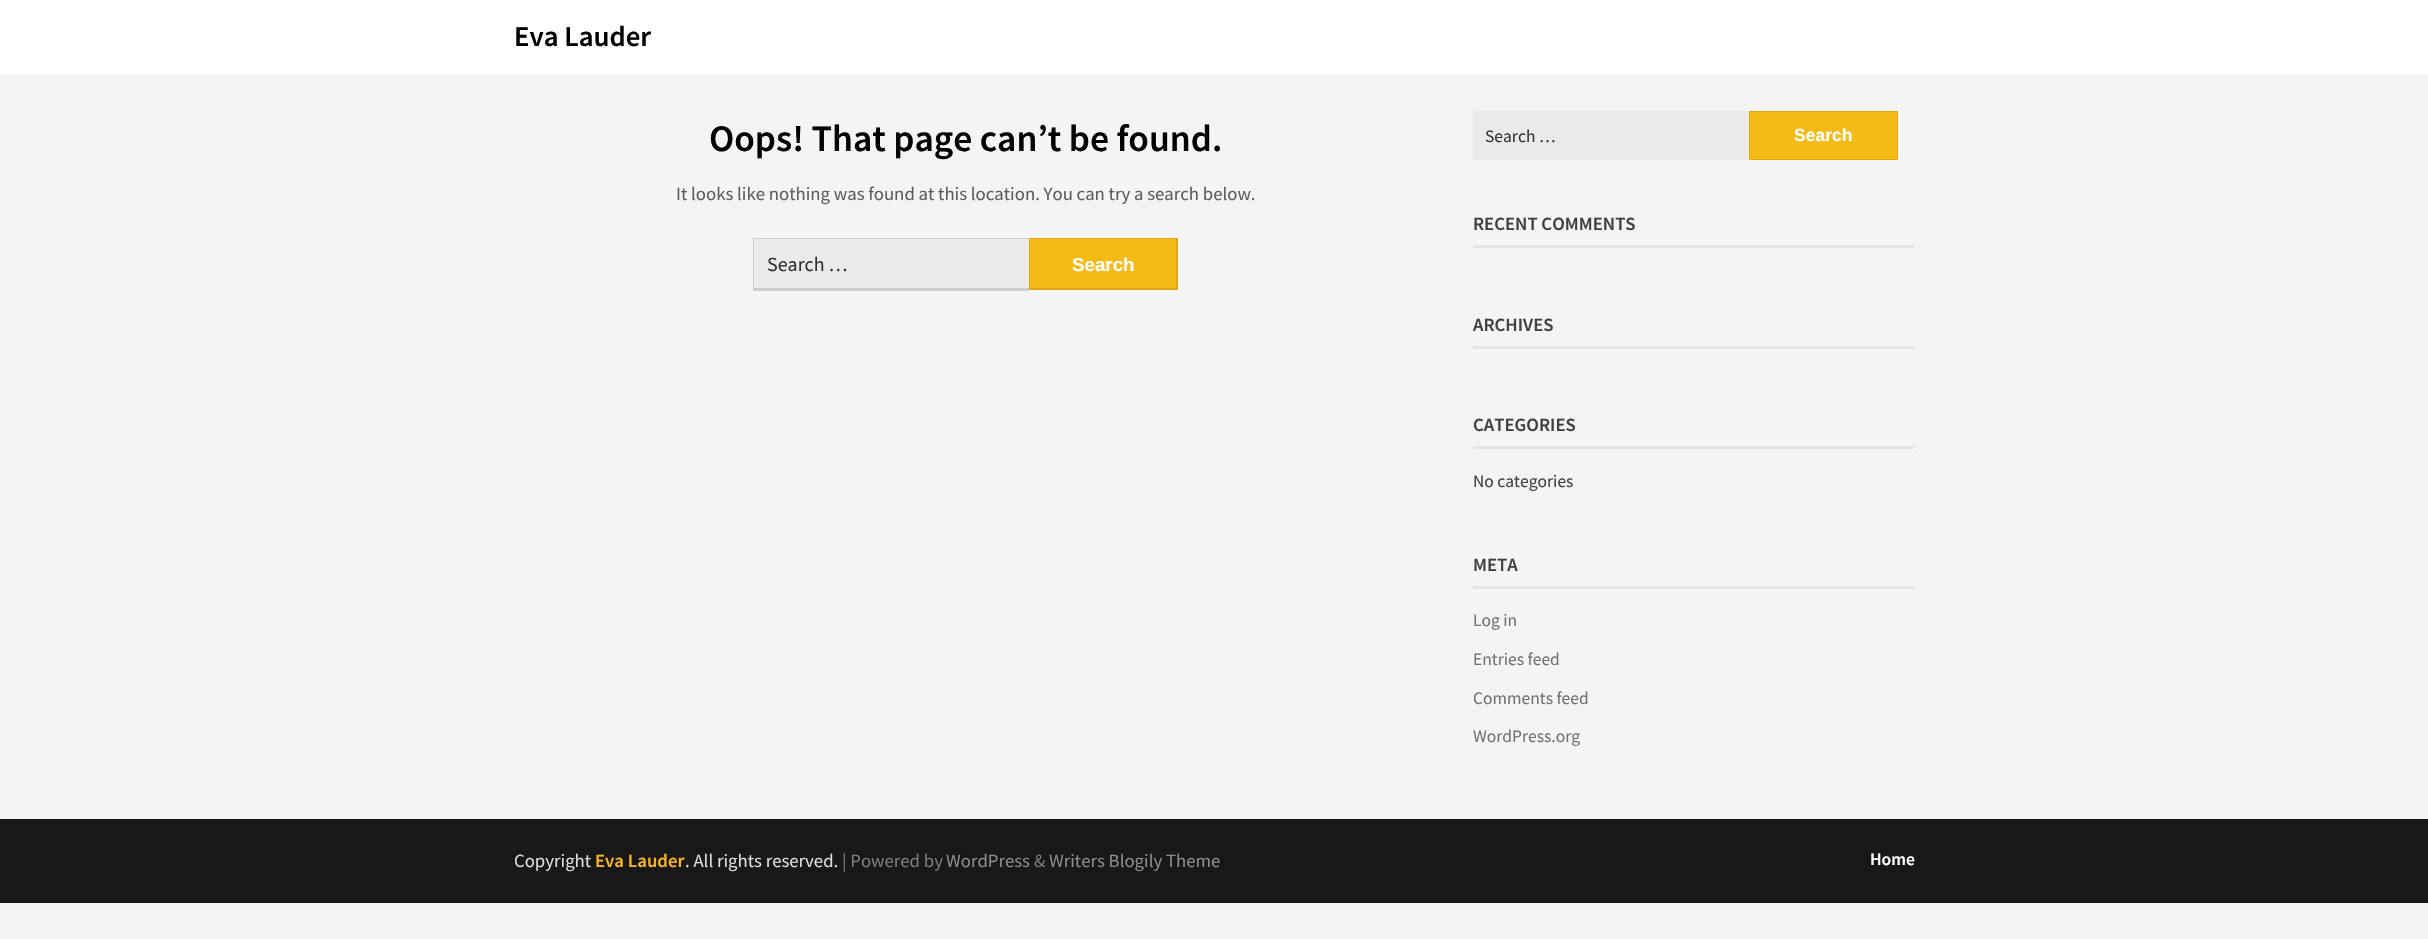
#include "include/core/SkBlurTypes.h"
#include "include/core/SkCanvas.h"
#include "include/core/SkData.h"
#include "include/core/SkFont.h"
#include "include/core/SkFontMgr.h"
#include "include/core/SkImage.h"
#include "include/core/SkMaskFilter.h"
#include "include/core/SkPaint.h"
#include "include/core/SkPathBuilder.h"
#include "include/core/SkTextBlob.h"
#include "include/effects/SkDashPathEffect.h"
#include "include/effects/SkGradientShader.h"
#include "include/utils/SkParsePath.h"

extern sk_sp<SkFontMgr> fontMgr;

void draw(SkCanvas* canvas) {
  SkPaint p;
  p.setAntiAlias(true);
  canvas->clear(SkColorSetRGB(244, 244, 244));
  p.setColor(SK_ColorWHITE);
  canvas->drawRect(SkRect::MakeLTRB(0, 0, 2428, 74), p);
  p.setColor(SkColorSetRGB(234, 234, 234));
  canvas->drawRect(SkRect::MakeLTRB(754, 239, 1029, 288), p);
  p.setColor(SkColorSetRGB(205, 205, 205));
  canvas->drawRect(SkRect::MakeLTRB(753, 238, 1029, 239), p);
  canvas->drawRect(SkRect::MakeLTRB(753, 288, 1029, 291), p);
  canvas->drawRect(SkRect::MakeLTRB(753, 238, 754, 290), p);
  p.setColor(SkColorSetRGB(245, 186, 20));
  canvas->drawRect(SkRect::MakeLTRB(1029, 238, 1178, 290), p);
  p.setColor(SkColorSetRGB(221, 167, 18));
  canvas->drawPath(SkPathBuilder().moveTo(1029, 238).lineTo(1178, 238).lineTo(1176, 239).lineTo(1030, 239).close().detach(), p);
  p.setColor(SkColorSetARGB(26, 0, 0, 0));
  canvas->drawPath(SkPathBuilder().moveTo(1178, 238).lineTo(1178, 290).lineTo(1176, 288).lineTo(1176, 239).close().detach(), p);
  canvas->drawPath(SkPathBuilder().moveTo(1178, 290).lineTo(1029, 290).lineTo(1030, 288).lineTo(1176, 288).close().detach(), p);
  canvas->drawPath(SkPathBuilder().moveTo(1029, 290).lineTo(1029, 238).lineTo(1030, 239).lineTo(1030, 288).close().detach(), p);
  p.setColor(SkColorSetRGB(234, 234, 234));
  canvas->drawRect(SkRect::MakeLTRB(1473, 111, 1749, 160), p);
  p.setColor(SkColorSetRGB(245, 186, 20));
  canvas->drawRect(SkRect::MakeLTRB(1749.5f, 111.5f, 1897.5f, 159.5f), p);
  p.setStyle(SkPaint::kStroke_Style);
  p.setStrokeWidth(1);
  p.setColor(SkColorSetRGB(221, 167, 18));
  canvas->drawRect(SkRect::MakeLTRB(1749.5f, 111.5f, 1897.5f, 159.5f), p);
  p.setStyle(SkPaint::kFill_Style);
  p.setColor(SkColorSetRGB(228, 228, 228));
  canvas->drawRect(SkRect::MakeLTRB(1473, 245, 1914, 248), p);
  canvas->drawRect(SkRect::MakeLTRB(1473, 346, 1914, 349), p);
  canvas->drawRect(SkRect::MakeLTRB(1473, 446, 1914, 449), p);
  canvas->drawRect(SkRect::MakeLTRB(1473, 586, 1914, 589), p);
  p.setColor(SkColorSetRGB(24, 24, 24));
  canvas->drawRect(SkRect::MakeLTRB(0, 819, 2428, 903), p);
  SkFont font1(fontMgr->matchFamilyStyle("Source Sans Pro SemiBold", SkFontStyle(600, SkFontStyle::kNormal_Width, SkFontStyle::kUpright_Slant)), 28.75f);
  font1.setSubpixel(true);
  p.setColor(SK_ColorBLACK);
  canvas->drawString("Eva Lauder", 514, 46, font1, p);
  SkFont font2(fontMgr->matchFamilyStyle("Source Sans Pro SemiBold", SkFontStyle(600, SkFontStyle::kNormal_Width, SkFontStyle::kUpright_Slant)), 37.5f);
  font2.setSubpixel(true);
  canvas->drawString("Oops! That page can’t be found.", 709, 151, font2, p);
  SkFont font3(fontMgr->matchFamilyStyle("Source Sans Pro", SkFontStyle::Normal()), 18.75f);
  font3.setSubpixel(true);
  p.setColor(SkColorSetRGB(93, 93, 93));
  canvas->drawString("It looks like nothing was found at this location. You can try a search below.", 676, 200, font3, p);
  SkFont font4(fontMgr->matchFamilyStyle("Source Sans Pro", SkFontStyle::Normal()), 20);
  font4.setSubpixel(true);
  p.setColor(SkColorSetRGB(51, 51, 51));
  canvas->drawString("Search …", 767, 271, font4, p);
  SkFont font5(fontMgr->matchFamilyStyle("Liberation Sans", SkFontStyle::Bold()), 18.75f);
  font5.setSubpixel(true);
  p.setColor(SK_ColorWHITE);
  canvas->drawString("Search", 1072, 271, font5, p);
  SkFont font6(fontMgr->matchFamilyStyle("Source Sans Pro", SkFontStyle::Normal()), 17.5f);
  font6.setSubpixel(true);
  p.setColor(SkColorSetRGB(51, 51, 51));
  canvas->drawString("Search …", 1485, 142, font6, p);
  SkFont font7(fontMgr->matchFamilyStyle("Liberation Sans", SkFontStyle::Bold()), 17.5f);
  font7.setSubpixel(true);
  p.setColor(SK_ColorWHITE);
  canvas->drawString("Search", 1794, 141, font7, p);
  SkFont font8(fontMgr->matchFamilyStyle("Source Sans Pro SemiBold", SkFontStyle(600, SkFontStyle::kNormal_Width, SkFontStyle::kUpright_Slant)), 18.75f);
  font8.setSubpixel(true);
  p.setColor(SkColorSetRGB(64, 64, 64));
  canvas->drawString("RECENT COMMENTS", 1473, 230, font8, p);
  canvas->drawString("ARCHIVES", 1473, 331, font8, p);
  canvas->drawString("CATEGORIES", 1473, 431, font8, p);
  canvas->drawString("No categories", 1473, 487, font6, p);
  canvas->drawString("META", 1473, 571, font8, p);
  p.setColor(SkColorSetRGB(114, 114, 114));
  canvas->drawString("Log in", 1473, 626, font6, p);
  canvas->drawString("Entries feed", 1473, 665, font6, p);
  canvas->drawString("Comments feed", 1473, 704, font6, p);
  canvas->drawString("WordPress.org", 1473, 742, font6, p);
  p.setColor(SkColorSetRGB(222, 222, 222));
  canvas->drawString("Copyright", 514, 867, font3, p);
  p.setColor(SkColorSetRGB(250, 181, 38));
  canvas->drawString("Eva Lauder", 595, 867, font8, p);
  p.setColor(SkColorSetRGB(222, 222, 222));
  canvas->drawString(". All rights reserved.", 685, 867, font3, p);
  p.setColor(SkColorSetRGB(123, 123, 123));
  canvas->drawString("| Powered by", 842, 867, font3, p);
  p.setColor(SkColorSetRGB(140, 140, 140));
  canvas->drawString("WordPress", 946, 867, font3, p);
  p.setColor(SkColorSetRGB(123, 123, 123));
  canvas->drawString("&", 1034, 867, font3, p);
  p.setColor(SkColorSetRGB(140, 140, 140));
  canvas->drawString("Writers Blogily Theme", 1049, 867, font3, p);
  SkFont font9(fontMgr->matchFamilyStyle("Source Sans Pro SemiBold", SkFontStyle(600, SkFontStyle::kNormal_Width, SkFontStyle::kUpright_Slant)), 17.5f);
  font9.setSubpixel(true);
  p.setColor(SK_ColorWHITE);
  canvas->drawString("Home", 1870, 865, font9, p);
}
